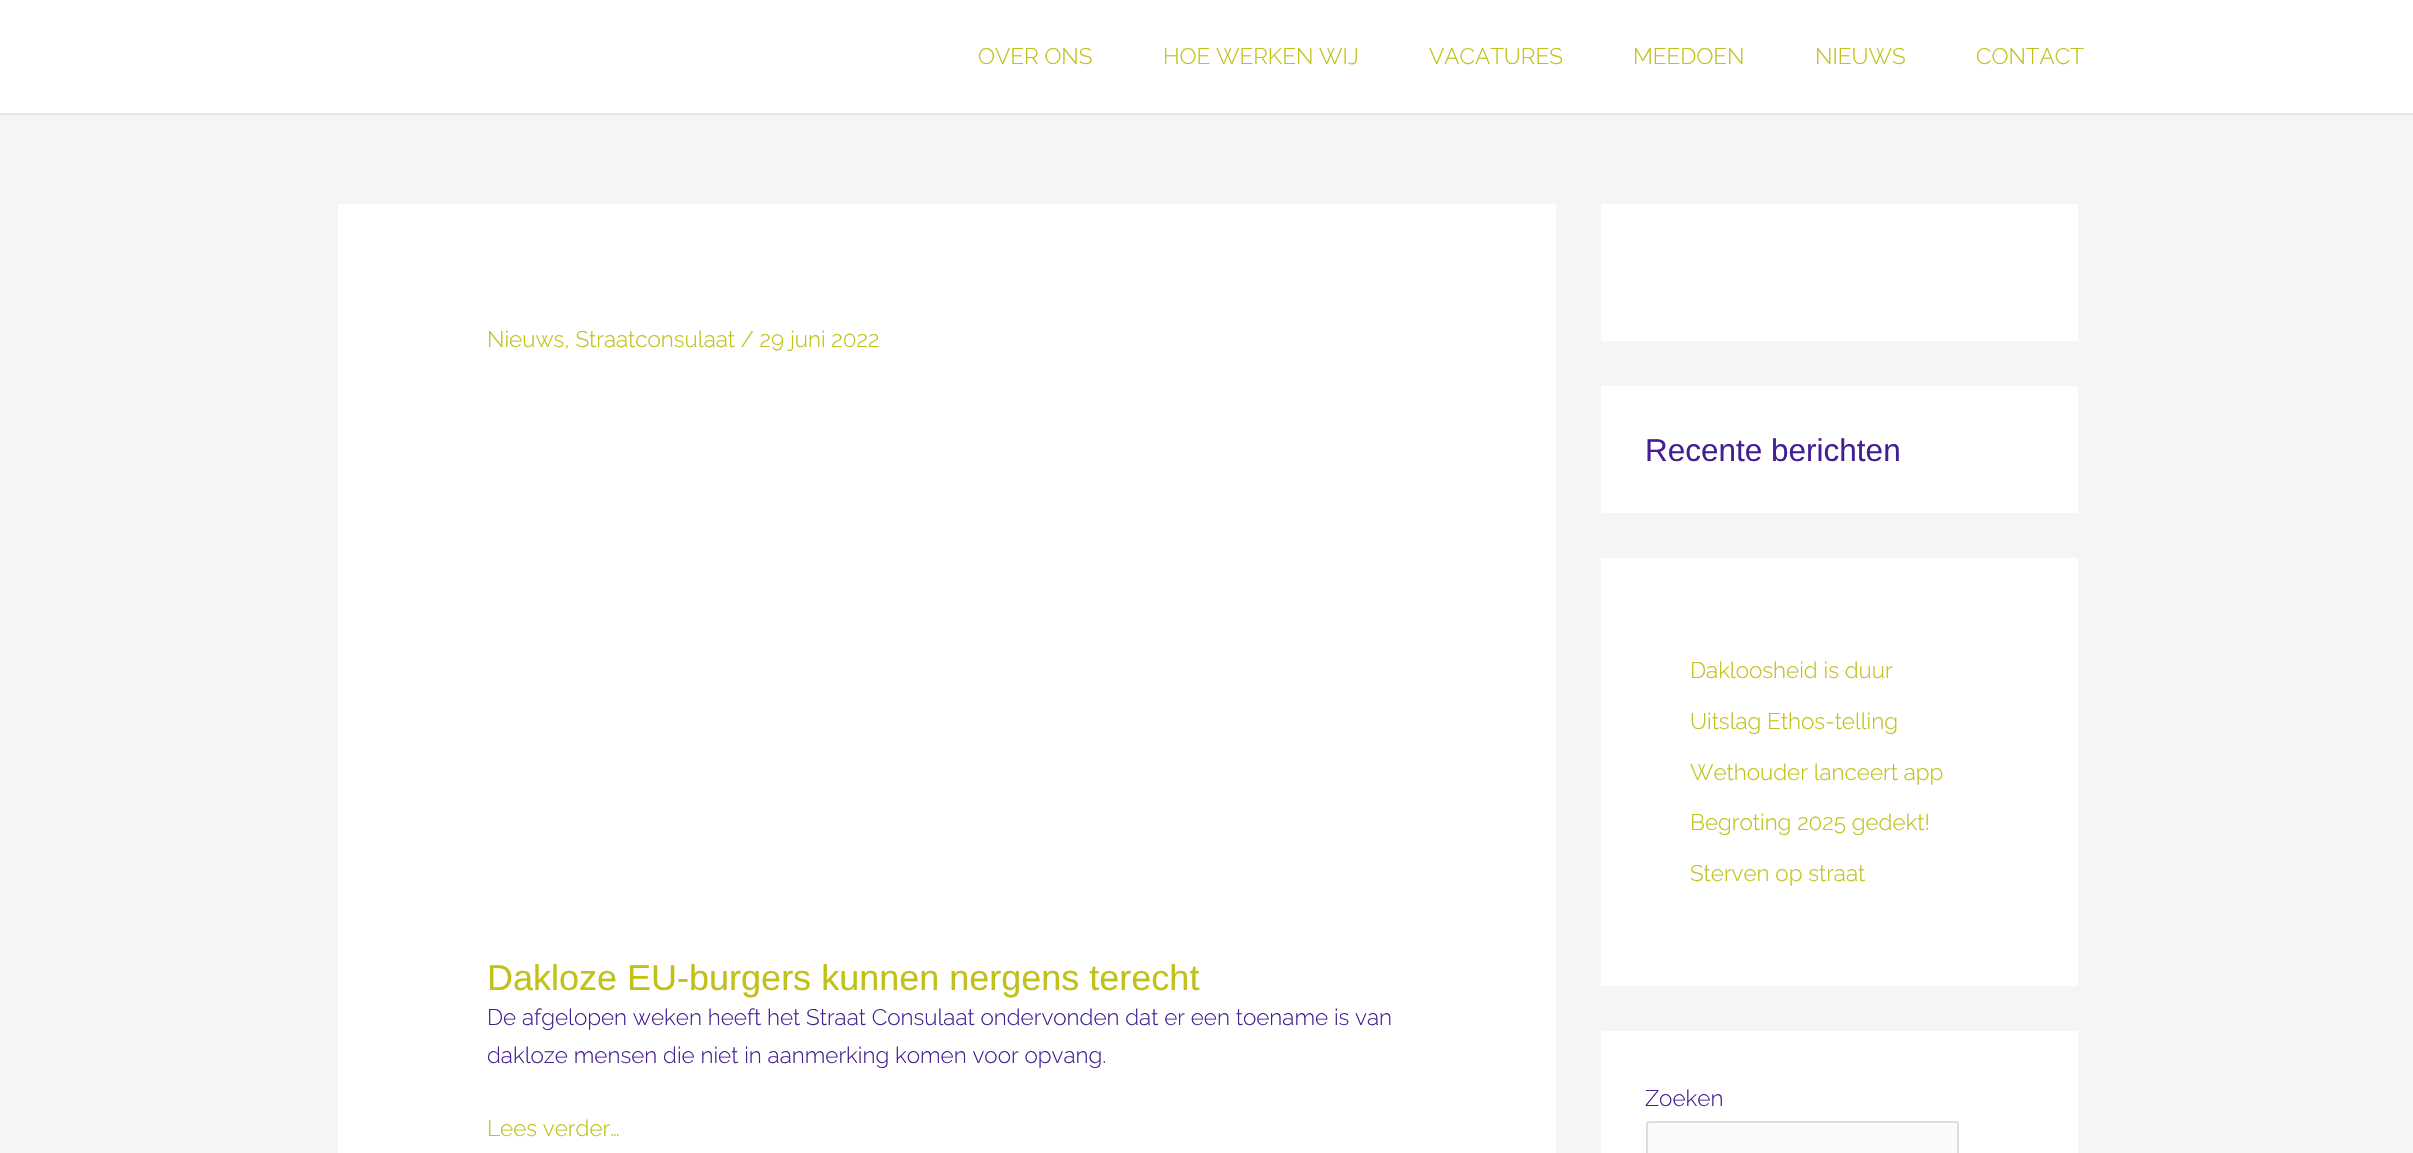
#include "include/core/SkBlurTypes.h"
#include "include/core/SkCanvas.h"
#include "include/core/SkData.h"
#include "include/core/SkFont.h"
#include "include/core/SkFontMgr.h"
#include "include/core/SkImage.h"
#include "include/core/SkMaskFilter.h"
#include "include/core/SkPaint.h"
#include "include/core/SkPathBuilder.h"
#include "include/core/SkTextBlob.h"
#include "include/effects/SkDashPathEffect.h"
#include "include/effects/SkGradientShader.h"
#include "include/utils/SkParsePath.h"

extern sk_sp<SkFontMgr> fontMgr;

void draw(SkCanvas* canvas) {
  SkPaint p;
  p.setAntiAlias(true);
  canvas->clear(SkColorSetRGB(245, 245, 245));
  p.setColor(SK_ColorWHITE);
  canvas->drawRect(SkRect::MakeLTRB(0, 0, 2413, 113), p);
  p.setColor(SkColorSetRGB(229, 229, 229));
  canvas->drawRect(SkRect::MakeLTRB(0, 113, 2413, 115), p);
  p.setColor(SK_ColorWHITE);
  canvas->drawRect(SkRect::MakeLTRB(338, 204, 1556, 1153), p);
  canvas->drawRect(SkRect::MakeLTRB(1601, 204, 2078, 341), p);
  canvas->drawRect(SkRect::MakeLTRB(1601, 386, 2078, 513), p);
  canvas->drawRect(SkRect::MakeLTRB(1601, 558, 2078, 986), p);
  canvas->drawRect(SkRect::MakeLTRB(1601, 1031, 2078, 1153), p);
  p.setColor(SkColorSetRGB(250, 250, 250));
  canvas->drawRoundRect(SkRect::MakeLTRB(1647, 1122, 1958, 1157), 2, 2, p);
  p.setStyle(SkPaint::kStroke_Style);
  p.setStrokeWidth(2);
  p.setColor(SkColorSetRGB(221, 221, 221));
  canvas->drawRoundRect(SkRect::MakeLTRB(1647, 1122, 1958, 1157), 2, 2, p);
  SkFont font1(fontMgr->matchFamilyStyle("Raleway", SkFontStyle(300, SkFontStyle::kNormal_Width, SkFontStyle::kUpright_Slant)), 22.5f);
  font1.setSubpixel(true);
  p.setStyle(SkPaint::kFill_Style);
  p.setColor(SkColorSetRGB(193, 193, 25));
  canvas->drawString("OVER ONS", 978, 64, font1, p);
  canvas->drawString("HOE WERKEN WIJ", 1163, 64, font1, p);
  canvas->drawString("VACATURES", 1429, 64, font1, p);
  canvas->drawString("MEEDOEN", 1633, 64, font1, p);
  canvas->drawString("NIEUWS", 1815, 64, font1, p);
  canvas->drawString("CONTACT", 1976, 64, font1, p);
  canvas->drawString("Nieuws, Straatconsulaat / 29 juni 2022", 487, 347, font1, p);
  SkFont font2(fontMgr->matchFamilyStyle("Liberation Sans", SkFontStyle::Normal()), 36);
  font2.setSubpixel(true);
  canvas->drawString("Dakloze EU-burgers kunnen nergens terecht", 487, 990, font2, p);
  p.setColor(SkColorSetRGB(68, 31, 147));
  canvas->drawString("De afgelopen weken heeft het Straat Consulaat ondervonden dat er een toename is van", 487, 1025, font1, p);
  canvas->drawString("dakloze mensen die niet in aanmerking komen voor opvang.", 487, 1063, font1, p);
  p.setColor(SkColorSetRGB(193, 193, 25));
  canvas->drawString("Lees verder…", 487, 1136, font1, p);
  SkFont font3(fontMgr->matchFamilyStyle("Liberation Sans", SkFontStyle::Normal()), 31.5f);
  font3.setSubpixel(true);
  p.setColor(SkColorSetRGB(68, 31, 147));
  canvas->drawString("Recente berichten", 1645, 461, font3, p);
  p.setColor(SkColorSetRGB(193, 193, 25));
  canvas->drawString("Dakloosheid is duur", 1690, 678, font1, p);
  canvas->drawString("Uitslag Ethos-telling", 1690, 729, font1, p);
  canvas->drawString("Wethouder lanceert app", 1690, 780, font1, p);
  canvas->drawString("Begroting 2025 gedekt!", 1690, 830, font1, p);
  canvas->drawString("Sterven op straat", 1690, 881, font1, p);
  p.setColor(SkColorSetRGB(68, 31, 147));
  canvas->drawString("Zoeken", 1645, 1106, font1, p);
}
